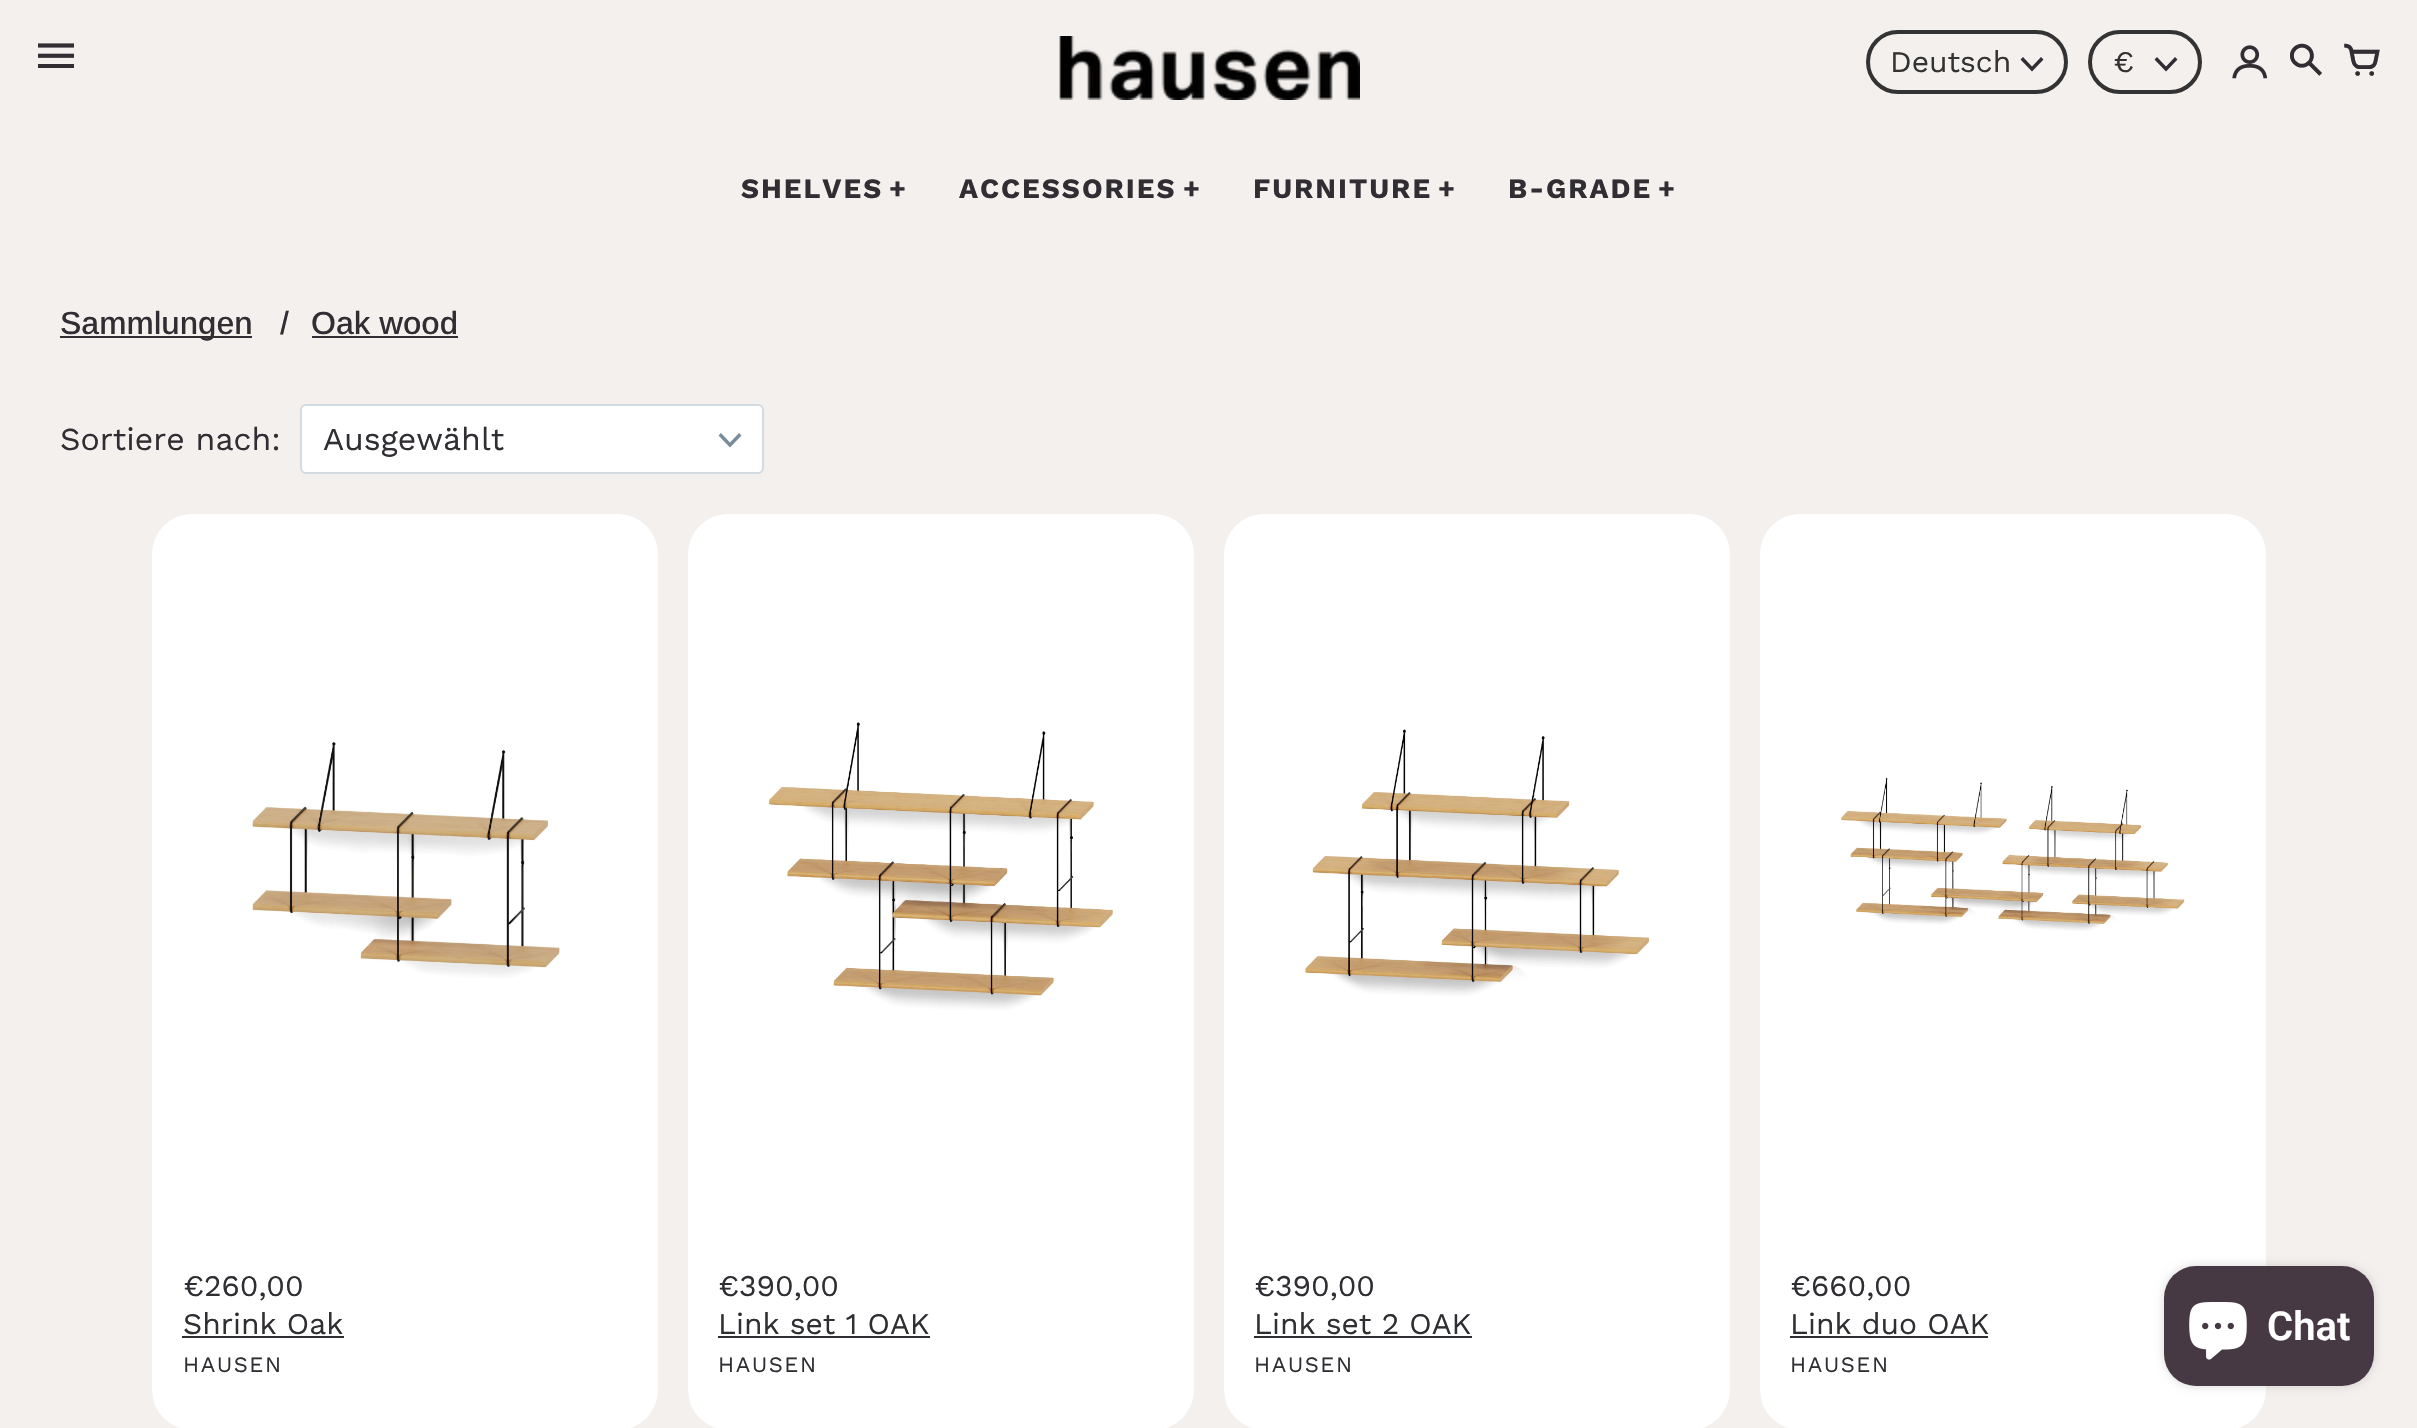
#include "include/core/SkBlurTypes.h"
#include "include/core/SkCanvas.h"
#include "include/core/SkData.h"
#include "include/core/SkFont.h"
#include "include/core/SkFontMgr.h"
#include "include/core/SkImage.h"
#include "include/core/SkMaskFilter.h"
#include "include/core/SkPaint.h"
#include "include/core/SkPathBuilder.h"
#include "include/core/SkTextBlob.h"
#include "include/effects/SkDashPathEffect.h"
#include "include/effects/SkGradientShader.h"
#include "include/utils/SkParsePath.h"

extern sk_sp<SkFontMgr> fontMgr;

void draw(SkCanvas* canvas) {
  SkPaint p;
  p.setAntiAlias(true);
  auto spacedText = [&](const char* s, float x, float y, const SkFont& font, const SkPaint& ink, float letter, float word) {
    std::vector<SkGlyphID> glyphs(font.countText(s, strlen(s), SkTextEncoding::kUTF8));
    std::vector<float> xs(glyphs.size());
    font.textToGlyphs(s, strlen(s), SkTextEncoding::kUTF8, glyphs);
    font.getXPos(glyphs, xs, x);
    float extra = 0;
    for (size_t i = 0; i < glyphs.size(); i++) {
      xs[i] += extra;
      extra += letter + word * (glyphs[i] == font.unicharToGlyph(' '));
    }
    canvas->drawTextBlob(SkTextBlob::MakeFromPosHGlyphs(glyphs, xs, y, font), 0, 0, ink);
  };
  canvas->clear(SkColorSetRGB(243, 240, 238));
  canvas->drawImageRect(SkImages::DeferredFromEncodedData(SkData::MakeFromFileName("images/1.png")), SkRect::MakeLTRB(1059, 36, 1360, 100), SkSamplingOptions());
  p.setStyle(SkPaint::kStroke_Style);
  p.setStrokeWidth(4);
  p.setColor(SkColorSetRGB(51, 51, 51));
  canvas->drawRoundRect(SkRect::MakeLTRB(1868, 32, 2066, 92), 30, 30, p);
  p.setStyle(SkPaint::kFill_Style);
  p.setColor(SkColorSetRGB(48, 45, 51));
  canvas->drawPath(SkPathBuilder().moveTo(2041, 57).lineTo(2032, 66.5f).lineTo(2023, 57).lineTo(2020.5f, 59.5f).lineTo(2032, 71.5f).lineTo(2043.5f, 59.5f).close().detach(), p);
  p.setStyle(SkPaint::kStroke_Style);
  p.setColor(SkColorSetRGB(51, 51, 51));
  canvas->drawRoundRect(SkRect::MakeLTRB(2090, 32, 2200, 92), 30, 30, p);
  p.setStyle(SkPaint::kFill_Style);
  p.setColor(SkColorSetRGB(48, 45, 51));
  canvas->drawPath(SkPathBuilder().moveTo(2175, 57).lineTo(2166, 66.5f).lineTo(2157, 57).lineTo(2154.5f, 59.5f).lineTo(2166, 71.5f).lineTo(2177.5f, 59.5f).close().detach(), p);
  canvas->drawImageRect(SkImages::DeferredFromEncodedData(SkData::MakeFromFileName("images/2.png")), SkRect::MakeLTRB(2232, 45, 2268, 79), SkSamplingOptions());
  canvas->drawRect(SkRect::MakeLTRB(60, 336, 252, 338), p);
  canvas->drawRect(SkRect::MakeLTRB(312, 336, 458, 338), p);
  p.setColor(SK_ColorWHITE);
  canvas->drawRoundRect(SkRect::MakeLTRB(301, 405, 763, 473), 5, 5, p);
  p.setStyle(SkPaint::kStroke_Style);
  p.setStrokeWidth(2);
  p.setColor(SkColorSetRGB(211, 219, 226));
  canvas->drawRoundRect(SkRect::MakeLTRB(301, 405, 763, 473), 5, 5, p);
  p.setStyle(SkPaint::kFill_Style);
  p.setColor(SkColorSetRGB(121, 140, 156));
  canvas->drawPath(SkPathBuilder().moveTo(739, 433).lineTo(730, 442.5f).lineTo(721, 433).lineTo(718.5f, 435.5f).lineTo(730, 447.5f).lineTo(741.5f, 435.5f).close().detach(), p);
  p.setColor(SK_ColorWHITE);
  canvas->drawRoundRect(SkRect::MakeLTRB(152, 514, 658, 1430), 40, 40, p);
  canvas->drawRect(SkRect::MakeLTRB(152, 550, 658, 551), p);
  canvas->drawImageRect(SkImages::DeferredFromEncodedData(SkData::MakeFromFileName("images/3.png")), SkRect::MakeLTRB(252, 742, 560, 978), SkSamplingOptions());
  p.setColor(SkColorSetRGB(48, 45, 51));
  canvas->drawRect(SkRect::MakeLTRB(182, 1336, 344, 1338), p);
  p.setColor(SK_ColorWHITE);
  canvas->drawRoundRect(SkRect::MakeLTRB(688, 514, 1194, 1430), 40, 40, p);
  canvas->drawRect(SkRect::MakeLTRB(688, 550, 1194, 551), p);
  canvas->drawImageRect(SkImages::DeferredFromEncodedData(SkData::MakeFromFileName("images/4.png")), SkRect::MakeLTRB(768, 722, 1113, 1010), SkSamplingOptions());
  p.setColor(SkColorSetRGB(48, 45, 51));
  canvas->drawRect(SkRect::MakeLTRB(718, 1336, 930, 1338), p);
  p.setColor(SK_ColorWHITE);
  canvas->drawRoundRect(SkRect::MakeLTRB(1224, 514, 1730, 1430), 40, 40, p);
  canvas->drawRect(SkRect::MakeLTRB(1224, 550, 1730, 551), p);
  canvas->drawImageRect(SkImages::DeferredFromEncodedData(SkData::MakeFromFileName("images/5.png")), SkRect::MakeLTRB(1305, 729, 1650, 996), SkSamplingOptions());
  p.setColor(SkColorSetRGB(48, 45, 51));
  canvas->drawRect(SkRect::MakeLTRB(1254, 1336, 1472, 1338), p);
  p.setColor(SK_ColorWHITE);
  canvas->drawRoundRect(SkRect::MakeLTRB(1760, 514, 2266, 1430), 40, 40, p);
  canvas->drawRect(SkRect::MakeLTRB(1760, 550, 2266, 551), p);
  canvas->drawImageRect(SkImages::DeferredFromEncodedData(SkData::MakeFromFileName("images/6.png")), SkRect::MakeLTRB(1841, 777, 2185, 931), SkSamplingOptions());
  p.setColor(SkColorSetRGB(48, 45, 51));
  canvas->drawRect(SkRect::MakeLTRB(1790, 1336, 1988, 1338), p);
  p.setColor(SkColorSetARGB(38, 0, 0, 0));
  p.setMaskFilter(SkMaskFilter::MakeBlur(kNormal_SkBlurStyle, 5));
  canvas->drawRoundRect(SkRect::MakeLTRB(2164, 1266, 2374, 1386), 32, 32, p);
  p.setMaskFilter(nullptr);
  p.setColor(SkColorSetRGB(70, 57, 68));
  canvas->drawRoundRect(SkRect::MakeLTRB(2164, 1266, 2374, 1386), 32, 32, p);
  canvas->drawImageRect(SkImages::DeferredFromEncodedData(SkData::MakeFromFileName("images/7.png")), SkRect::MakeLTRB(2189, 1302, 2247, 1360), SkSamplingOptions());
  SkFont font1(fontMgr->matchFamilyStyle("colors", SkFontStyle::Normal()), 36);
  font1.setSubpixel(true);
  p.setColor(SkColorSetRGB(48, 45, 51));
  canvas->drawString("1", 38, 76, font1, p);
  SkFont font2(fontMgr->matchFamilyStyle("Work Sans", SkFontStyle::Normal()), 30);
  font2.setSubpixel(true);
  p.setColor(SkColorSetRGB(51, 51, 51));
  canvas->drawString("Deutsch", 1890, 72, font2, p);
  canvas->drawString("€", 2113, 72, font2, p);
  p.setColor(SkColorSetRGB(48, 45, 51));
  canvas->drawString("2", 2288, 80, font1, p);
  canvas->drawString("3", 2344, 80, font1, p);
  SkFont font3(fontMgr->matchFamilyStyle("Work Sans", SkFontStyle::Bold()), 28);
  font3.setSubpixel(true);
  spacedText("SHELVES", 741, 198, font3, p, 2, 0);
  spacedText("+", 889, 198, font3, p, 2, 0);
  spacedText("ACCESSORIES", 959, 198, font3, p, 2, 0);
  spacedText("+", 1183, 198, font3, p, 2, 0);
  spacedText("FURNITURE", 1253, 198, font3, p, 2, 0);
  spacedText("+", 1438, 198, font3, p, 2, 0);
  spacedText("B-GRADE", 1508, 198, font3, p, 2, 0);
  spacedText("+", 1658, 198, font3, p, 2, 0);
  SkFont font4(fontMgr->matchFamilyStyle("Arimo", SkFontStyle(500, SkFontStyle::kNormal_Width, SkFontStyle::kUpright_Slant)), 32);
  font4.setSubpixel(true);
  canvas->drawString("Sammlungen", 60, 334, font4, p);
  canvas->drawString("/", 280, 334, font4, p);
  canvas->drawString("Oak wood", 311, 334, font4, p);
  SkFont font5(fontMgr->matchFamilyStyle("Work Sans", SkFontStyle::Normal()), 32);
  font5.setSubpixel(true);
  canvas->drawString("Sortiere nach:", 60, 450, font5, p);
  canvas->drawString("Ausgewählt", 323, 450, font5, p);
  canvas->drawString("€260,00", 183, 1296, font2, p);
  canvas->drawString("Shrink Oak", 183, 1334, font2, p);
  SkFont font6(fontMgr->matchFamilyStyle("Work Sans", SkFontStyle::Normal()), 22);
  font6.setSubpixel(true);
  spacedText("HAUSEN", 183, 1372, font6, p, 1.5f, 0);
  canvas->drawString("€390,00", 718, 1296, font2, p);
  canvas->drawString("Link set 1 OAK", 718, 1334, font2, p);
  spacedText("HAUSEN", 718, 1372, font6, p, 1.5f, 0);
  canvas->drawString("€390,00", 1254, 1296, font2, p);
  canvas->drawString("Link set 2 OAK", 1254, 1334, font2, p);
  spacedText("HAUSEN", 1254, 1372, font6, p, 1.5f, 0);
  canvas->drawString("€660,00", 1790, 1296, font2, p);
  canvas->drawString("Link duo OAK", 1790, 1334, font2, p);
  spacedText("HAUSEN", 1790, 1372, font6, p, 1.5f, 0);
  SkFont font7(fontMgr->matchFamilyStyle("Roboto", SkFontStyle(600, SkFontStyle::kNormal_Width, SkFontStyle::kUpright_Slant)), 40);
  font7.setSubpixel(true);
  p.setColor(SK_ColorWHITE);
  canvas->drawString("Chat", 2267, 1340, font7, p);
}
